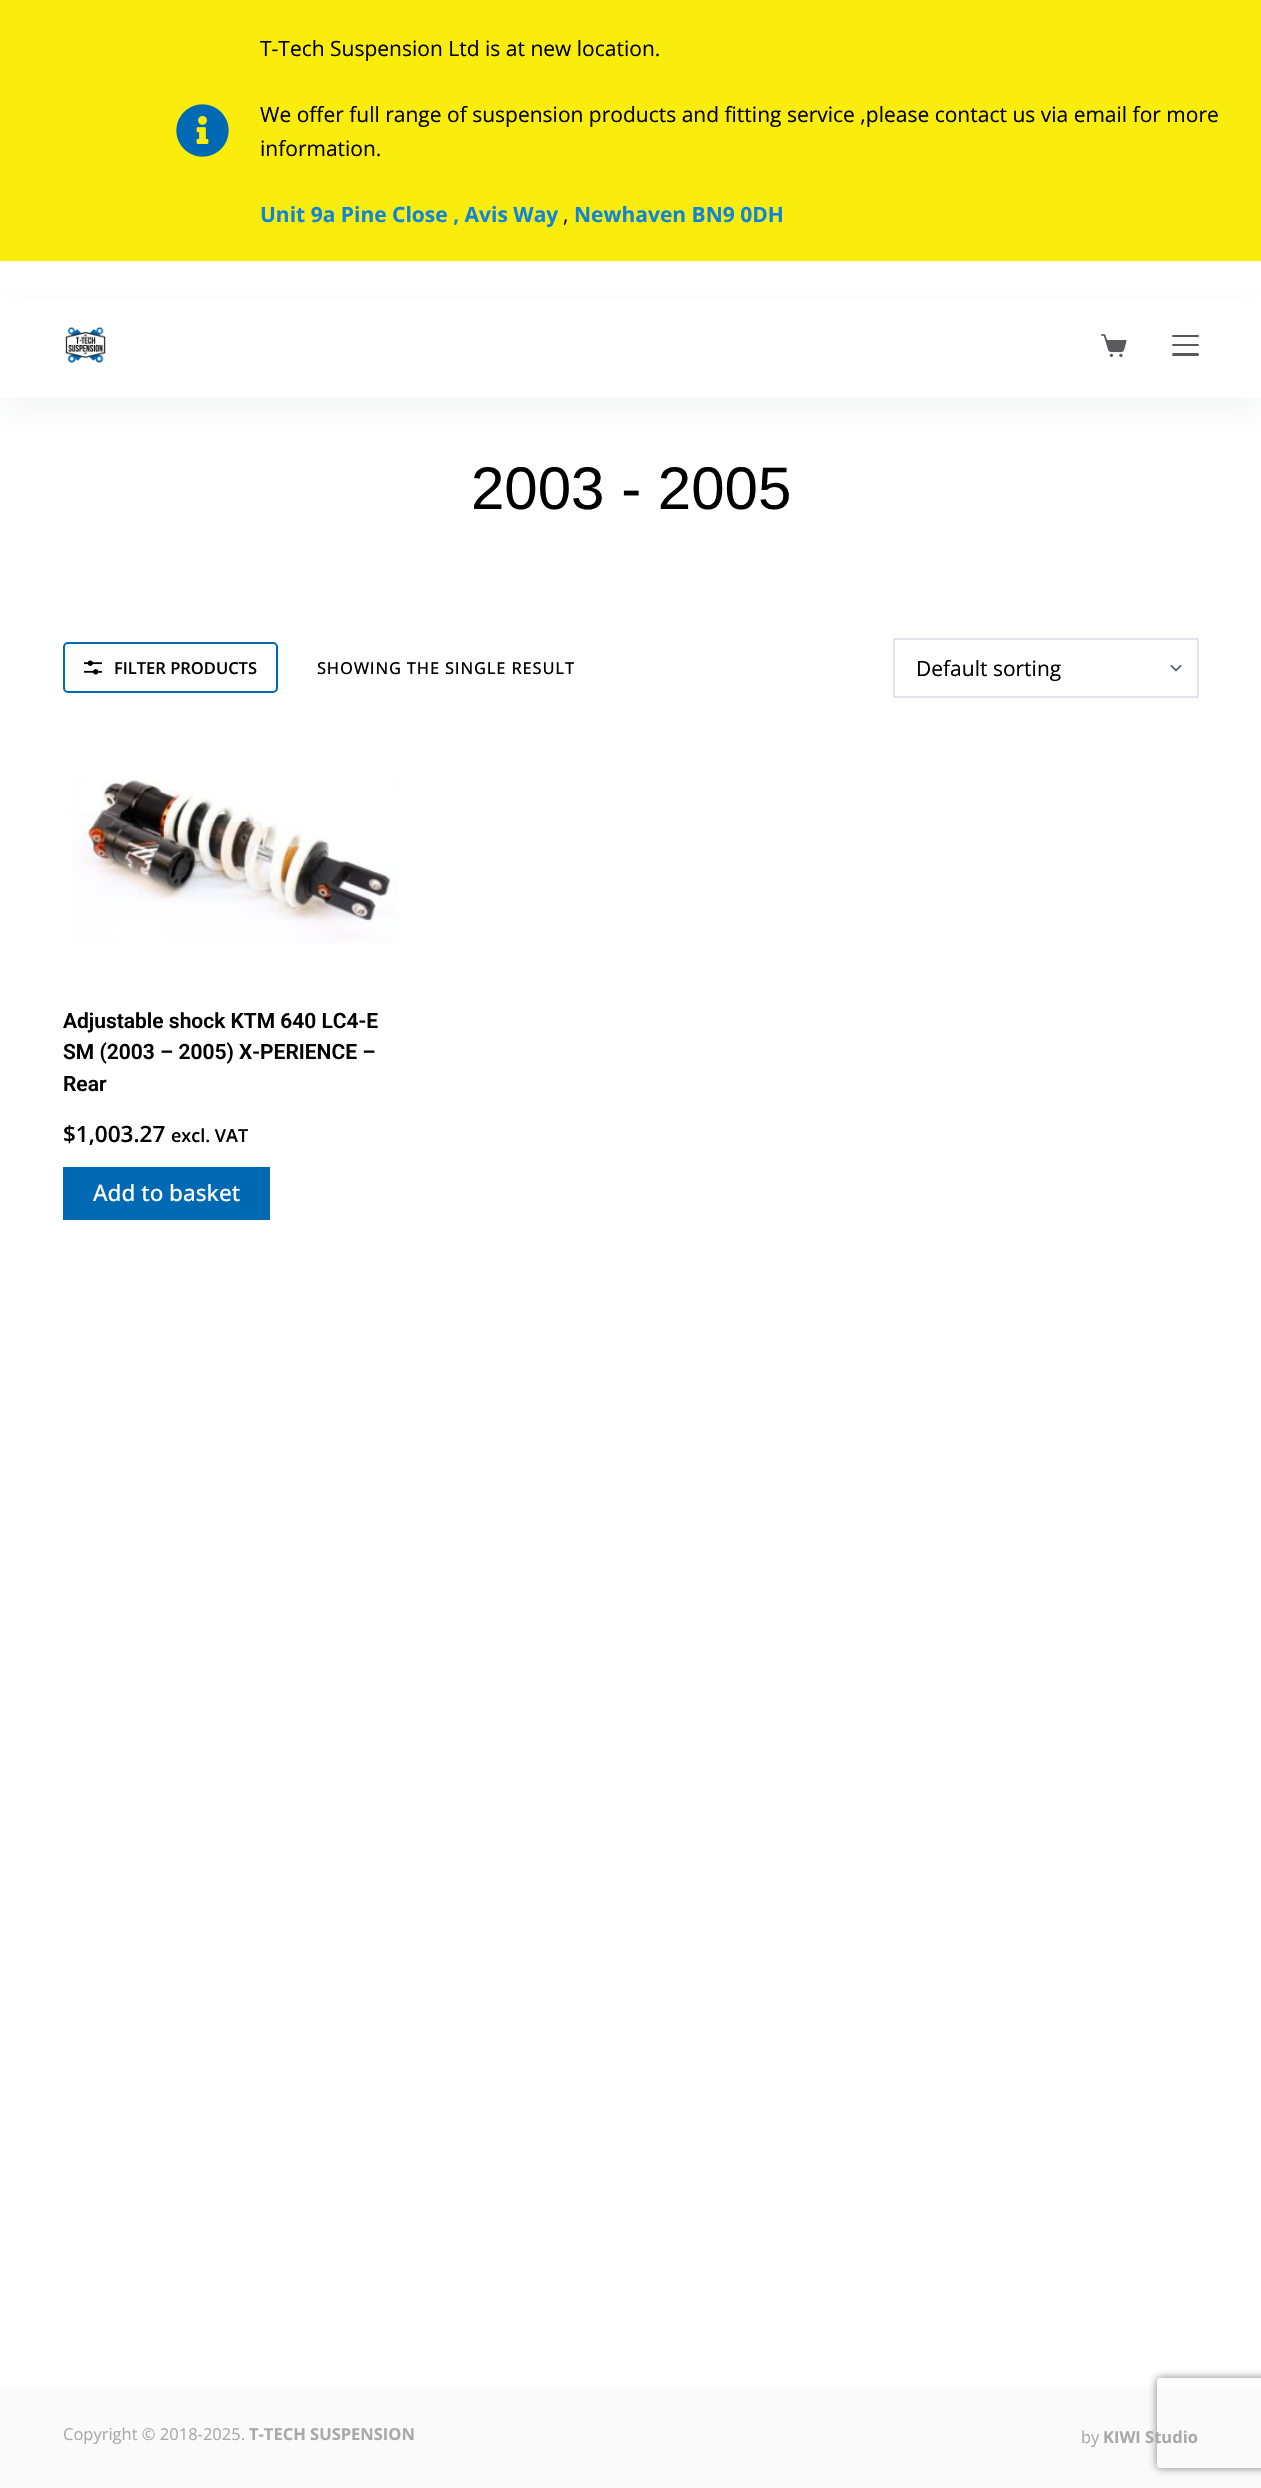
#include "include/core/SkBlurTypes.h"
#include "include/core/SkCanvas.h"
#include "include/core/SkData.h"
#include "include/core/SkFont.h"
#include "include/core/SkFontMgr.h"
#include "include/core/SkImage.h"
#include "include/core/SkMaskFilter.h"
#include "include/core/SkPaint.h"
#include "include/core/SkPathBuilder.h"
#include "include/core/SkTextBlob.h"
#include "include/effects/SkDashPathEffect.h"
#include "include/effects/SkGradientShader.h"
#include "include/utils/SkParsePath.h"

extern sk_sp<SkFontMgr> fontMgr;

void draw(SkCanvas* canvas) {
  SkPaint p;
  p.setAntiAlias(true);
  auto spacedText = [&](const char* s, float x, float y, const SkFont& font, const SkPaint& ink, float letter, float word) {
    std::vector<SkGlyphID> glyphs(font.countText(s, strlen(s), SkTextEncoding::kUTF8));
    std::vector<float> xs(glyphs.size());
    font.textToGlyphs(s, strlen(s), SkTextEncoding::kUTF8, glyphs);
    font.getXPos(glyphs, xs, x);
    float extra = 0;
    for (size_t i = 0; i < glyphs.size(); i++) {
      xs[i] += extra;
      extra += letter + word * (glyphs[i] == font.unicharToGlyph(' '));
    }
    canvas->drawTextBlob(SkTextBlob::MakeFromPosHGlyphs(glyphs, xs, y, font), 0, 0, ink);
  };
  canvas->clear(SK_ColorWHITE);
  p.setColor(SkColorSetRGB(250, 236, 12));
  canvas->drawRect(SkRect::MakeLTRB(0, 0, 1261, 261), p);
  canvas->drawImageRect(SkImages::DeferredFromEncodedData(SkData::MakeFromFileName("images/1.png")), SkRect::MakeLTRB(176, 104, 229, 157), SkSamplingOptions());
  p.setColor(SkColorSetARGB(13, 44, 62, 80));
  p.setMaskFilter(SkMaskFilter::MakeBlur(kNormal_SkBlurStyle, 15));
  canvas->drawRect(SkRect::MakeLTRB(0, 308, 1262, 413), p);
  p.setMaskFilter(nullptr);
  p.setColor(SK_ColorWHITE);
  canvas->drawRect(SkRect::MakeLTRB(0, 298, 1261, 398), p);
  canvas->drawImageRect(SkImages::DeferredFromEncodedData(SkData::MakeFromFileName("images/2.png")), SkRect::MakeLTRB(65, 327, 106, 363), SkSamplingOptions());
  canvas->drawImageRect(SkImages::DeferredFromEncodedData(SkData::MakeFromFileName("images/3.png")), SkRect::MakeLTRB(1101, 334, 1127, 358), SkSamplingOptions());
  p.setColor(SkColorSetRGB(90, 88, 93));
  canvas->drawRoundRect(SkRect::MakeLTRB(1172, 335, 1199, 337), 1, 1, p);
  canvas->drawRoundRect(SkRect::MakeLTRB(1172, 344, 1199, 346), 1, 1, p);
  canvas->drawRoundRect(SkRect::MakeLTRB(1172, 353, 1199, 356), 1.5f, 1.5f, p);
  p.setStyle(SkPaint::kStroke_Style);
  p.setStrokeWidth(2);
  p.setColor(SkColorSetRGB(0, 105, 179));
  canvas->drawRoundRect(SkRect::MakeLTRB(64, 643, 277, 692), 4, 4, p);
  canvas->drawImageRect(SkImages::DeferredFromEncodedData(SkData::MakeFromFileName("images/4.png")), SkRect::MakeLTRB(84, 660, 102, 675), SkSamplingOptions());
  canvas->drawImageRect(SkImages::DeferredFromEncodedData(SkData::MakeFromFileName("images/5.png")), SkRect::MakeLTRB(1170, 665, 1182, 672), SkSamplingOptions());
  p.setColor(SkColorSetRGB(224, 229, 235));
  canvas->drawRect(SkRect::MakeLTRB(894, 639, 1198, 697), p);
  canvas->drawImageRect(SkImages::DeferredFromEncodedData(SkData::MakeFromFileName("images/6.png")), SkRect::MakeLTRB(72, 777, 398, 944), SkSamplingOptions());
  p.setStyle(SkPaint::kFill_Style);
  p.setColor(SkColorSetRGB(0, 105, 179));
  canvas->drawRect(SkRect::MakeLTRB(63, 1167, 270, 1220), p);
  p.setColor(SkColorSetRGB(250, 250, 250));
  canvas->drawRect(SkRect::MakeLTRB(0, 2387, 1261, 2488), p);
  canvas->save();
  canvas->clipPath(SkPathBuilder(SkPathFillType::kEvenOdd).moveTo(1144, 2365).lineTo(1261, 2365).lineTo(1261, 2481).lineTo(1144, 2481).close().moveTo(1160, 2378).lineTo(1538, 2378).cubicTo(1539.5f, 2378, 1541, 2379.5f, 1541, 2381).lineTo(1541, 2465).cubicTo(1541, 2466.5f, 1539.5f, 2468, 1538, 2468).lineTo(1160, 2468).cubicTo(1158.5f, 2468, 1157, 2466.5f, 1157, 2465).lineTo(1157, 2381).cubicTo(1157, 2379.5f, 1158.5f, 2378, 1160, 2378).close().detach(), true);
  p.setColor(SkColorSetRGB(128, 128, 128));
  p.setMaskFilter(SkMaskFilter::MakeBlur(kNormal_SkBlurStyle, 4));
  canvas->drawRoundRect(SkRect::MakeLTRB(1157, 2378, 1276, 2468), 3, 3, p);
  p.setMaskFilter(nullptr);
  canvas->restore();
  SkFont font1(fontMgr->matchFamilyStyle("Open Sans", SkFontStyle::Normal()), 21);
  font1.setSubpixel(true);
  p.setColor(SK_ColorBLACK);
  canvas->drawString("T-Tech Suspension Ltd is at new location.", 260, 56, font1, p);
  canvas->drawString("We offer full range of suspension products and fitting service ,please contact us via email for more", 260, 122, font1, p);
  canvas->drawString("information.", 260, 156, font1, p);
  SkFont font2(fontMgr->matchFamilyStyle("Open Sans", SkFontStyle::Bold()), 21);
  font2.setSubpixel(true);
  p.setColor(SkColorSetRGB(15, 133, 217));
  canvas->drawString("Unit 9a Pine Close , Avis Way", 260, 222, font2, p);
  p.setColor(SK_ColorBLACK);
  canvas->drawString(",", 563, 222, font1, p);
  p.setColor(SkColorSetRGB(15, 133, 217));
  canvas->drawString("Newhaven BN9 0DH", 574, 222, font2, p);
  SkFont font3(fontMgr->matchFamilyStyle("Liberation Sans", SkFontStyle::Normal()), 60);
  font3.setSubpixel(true);
  p.setColor(SK_ColorBLACK);
  canvas->drawString("2003 - 2005", 471, 509, font3, p);
  SkFont font4(fontMgr->matchFamilyStyle("Open Sans", SkFontStyle(600, SkFontStyle::kNormal_Width, SkFontStyle::kUpright_Slant)), 16.5f);
  font4.setSubpixel(true);
  canvas->drawString("FILTER PRODUCTS", 114, 674, font4, p);
  SkFont font5(fontMgr->matchFamilyStyle("Open Sans", SkFontStyle(500, SkFontStyle::kNormal_Width, SkFontStyle::kUpright_Slant)), 16.5f);
  font5.setSubpixel(true);
  spacedText("SHOWING THE SINGLE RESULT", 317, 674, font5, p, 0.8f, 0);
  canvas->drawString("Default sorting", 916, 676, font1, p);
  SkFont font6(fontMgr->matchFamilyStyle("Roboto", SkFontStyle(600, SkFontStyle::kNormal_Width, SkFontStyle::kUpright_Slant)), 21);
  font6.setSubpixel(true);
  canvas->drawString("Adjustable shock KTM 640 LC4-E", 63, 1028, font6, p);
  canvas->drawString("SM (2003 – 2005) X-PERIENCE –", 63, 1059, font6, p);
  canvas->drawString("Rear", 63, 1091, font6, p);
  SkFont font7(fontMgr->matchFamilyStyle("Open Sans", SkFontStyle(600, SkFontStyle::kNormal_Width, SkFontStyle::kUpright_Slant)), 22.5f);
  font7.setSubpixel(true);
  canvas->drawString("$1,003.27", 63, 1142, font7, p);
  SkFont font8(fontMgr->matchFamilyStyle("Open Sans", SkFontStyle(600, SkFontStyle::kNormal_Width, SkFontStyle::kUpright_Slant)), 18);
  font8.setSubpixel(true);
  canvas->drawString("excl. VAT", 171, 1142, font8, p);
  SkFont font9(fontMgr->matchFamilyStyle("Open Sans", SkFontStyle(500, SkFontStyle::kNormal_Width, SkFontStyle::kUpright_Slant)), 22.5f);
  font9.setSubpixel(true);
  p.setColor(SK_ColorWHITE);
  canvas->drawString("Add to basket", 93, 1201, font9, p);
  SkFont font10(fontMgr->matchFamilyStyle("Open Sans", SkFontStyle::Normal()), 16.5f);
  font10.setSubpixel(true);
  p.setColor(SkColorSetRGB(169, 169, 169));
  canvas->drawString("Copyright © 2018-2025.", 63, 2440, font10, p);
  SkFont font11(fontMgr->matchFamilyStyle("Open Sans", SkFontStyle::Bold()), 16.5f);
  font11.setSubpixel(true);
  canvas->drawString("T-TECH SUSPENSION", 249, 2440, font11, p);
  canvas->drawString("by", 1081, 2443, font10, p);
  canvas->drawString("KIWI Studio", 1103, 2443, font11, p);
}
